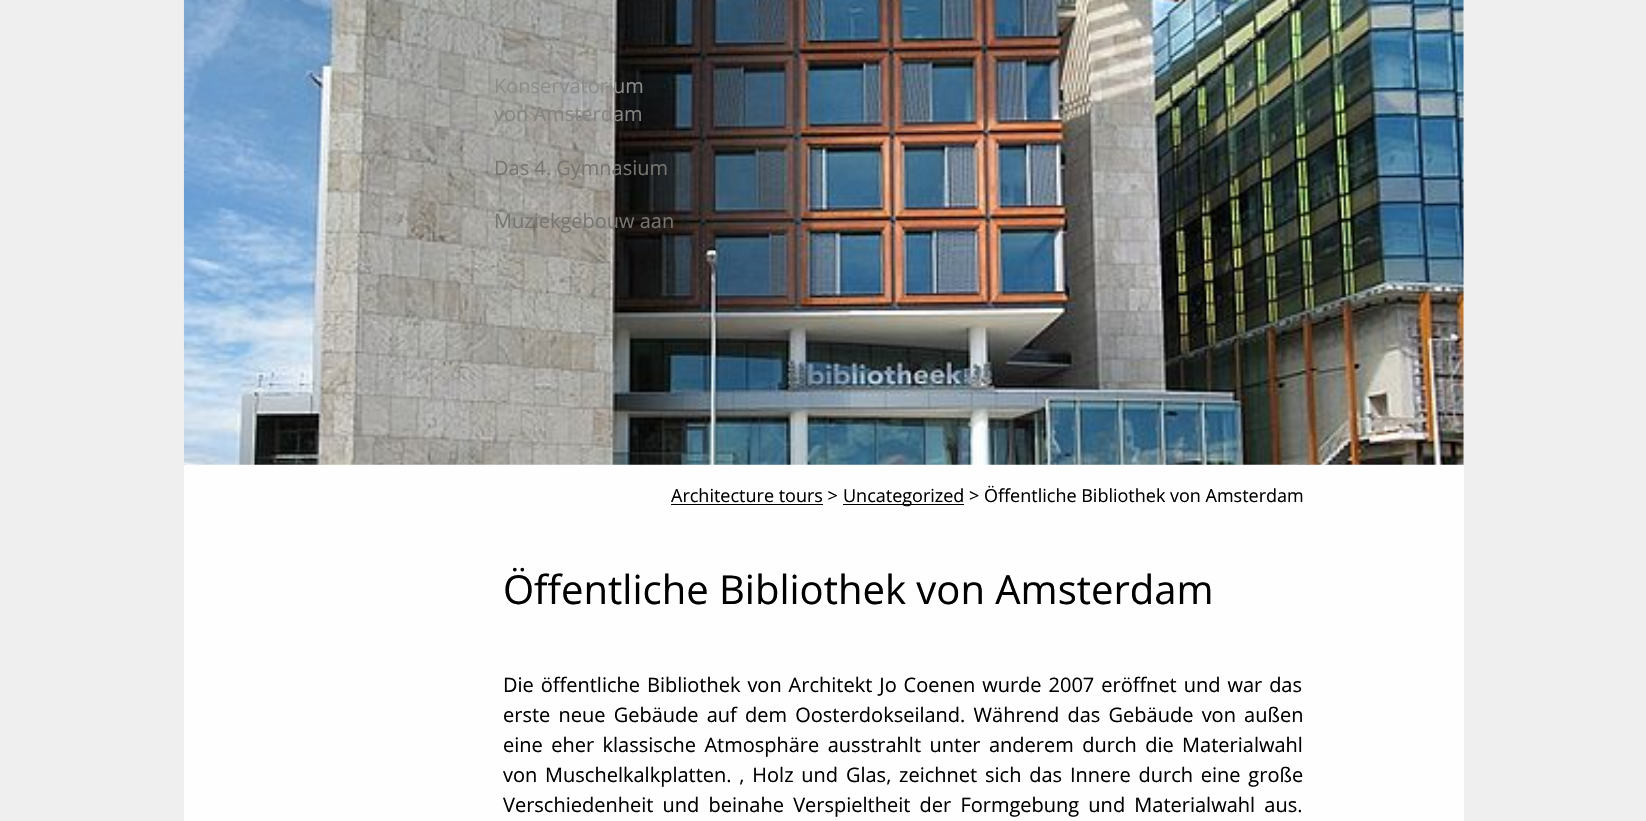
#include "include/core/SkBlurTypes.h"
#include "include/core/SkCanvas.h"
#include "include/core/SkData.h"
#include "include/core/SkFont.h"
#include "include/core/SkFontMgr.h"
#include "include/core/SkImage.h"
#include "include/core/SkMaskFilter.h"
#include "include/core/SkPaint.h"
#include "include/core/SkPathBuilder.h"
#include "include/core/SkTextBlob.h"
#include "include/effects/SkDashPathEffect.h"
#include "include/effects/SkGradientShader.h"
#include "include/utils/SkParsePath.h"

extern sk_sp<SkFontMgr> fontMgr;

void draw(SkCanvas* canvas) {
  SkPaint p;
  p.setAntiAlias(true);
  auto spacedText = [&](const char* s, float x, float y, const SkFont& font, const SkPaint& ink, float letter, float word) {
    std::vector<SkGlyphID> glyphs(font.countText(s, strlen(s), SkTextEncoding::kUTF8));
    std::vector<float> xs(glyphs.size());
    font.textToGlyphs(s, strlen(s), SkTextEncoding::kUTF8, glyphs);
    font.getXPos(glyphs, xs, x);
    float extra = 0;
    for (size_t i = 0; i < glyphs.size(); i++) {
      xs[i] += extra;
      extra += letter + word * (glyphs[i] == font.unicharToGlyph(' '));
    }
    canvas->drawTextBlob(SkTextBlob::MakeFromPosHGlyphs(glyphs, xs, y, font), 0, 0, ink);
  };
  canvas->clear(SkColorSetRGB(239, 239, 239));
  p.setColor(SkColorSetRGB(254, 254, 254));
  canvas->drawRect(SkRect::MakeLTRB(184, 0, 1464, 821), p);
  canvas->drawImageRect(SkImages::DeferredFromEncodedData(SkData::MakeFromFileName("images/1.png")), SkRect::MakeLTRB(183, 0, 1464, 465), SkSamplingOptions());
  p.setColor(SK_ColorBLACK);
  canvas->drawRect(SkRect::MakeLTRB(671, 504, 823, 505), p);
  canvas->drawRect(SkRect::MakeLTRB(843, 504, 964, 505), p);
  SkFont font1(fontMgr->matchFamilyStyle("Open Sans", SkFontStyle::Normal()), 20);
  font1.setSubpixel(true);
  p.setColor(SkColorSetRGB(140, 141, 138));
  canvas->drawString("Konservatorium", 494, 93, font1, p);
  p.setColor(SkColorSetRGB(133, 132, 129));
  canvas->drawString("von Amsterdam", 494, 121, font1, p);
  p.setColor(SkColorSetRGB(118, 117, 113));
  canvas->drawString("Das 4. Gymnasium", 494, 175, font1, p);
  canvas->drawString("Muziekgebouw aan", 494, 228, font1, p);
  SkFont font2(fontMgr->matchFamilyStyle("Open Sans", SkFontStyle::Normal()), 18);
  font2.setSubpixel(true);
  p.setColor(SK_ColorBLACK);
  canvas->drawString("Architecture tours >", 671, 502, font2, p);
  canvas->drawString("Uncategorized > Öffentliche Bibliothek von Amsterdam", 843, 502, font2, p);
  SkFont font3(fontMgr->matchFamilyStyle("Open Sans", SkFontStyle::Normal()), 40);
  font3.setSubpixel(true);
  canvas->drawString("Öffentliche Bibliothek von Amsterdam", 503, 604, font3, p);
  spacedText("Die öffentliche Bibliothek von Architekt Jo Coenen wurde 2007 eröffnet und war das", 503, 692, font1, p, 0, 1.75f);
  spacedText("erste neue Gebäude auf dem Oosterdokseiland. Während das Gebäude von außen", 503, 722, font1, p, 0, 3);
  spacedText("eine eher klassische Atmosphäre ausstrahlt unter anderem durch die Materialwahl", 503, 752, font1, p, 0, 3.25f);
  spacedText("von Muschelkalkplatten. , Holz und Glas, zeichnet sich das Innere durch eine große", 503, 782, font1, p, 0, 2.6f);
  spacedText("Verschiedenheit und beinahe Verspieltheit der Formgebung und Materialwahl aus.", 503, 812, font1, p, 0, 4);
}
